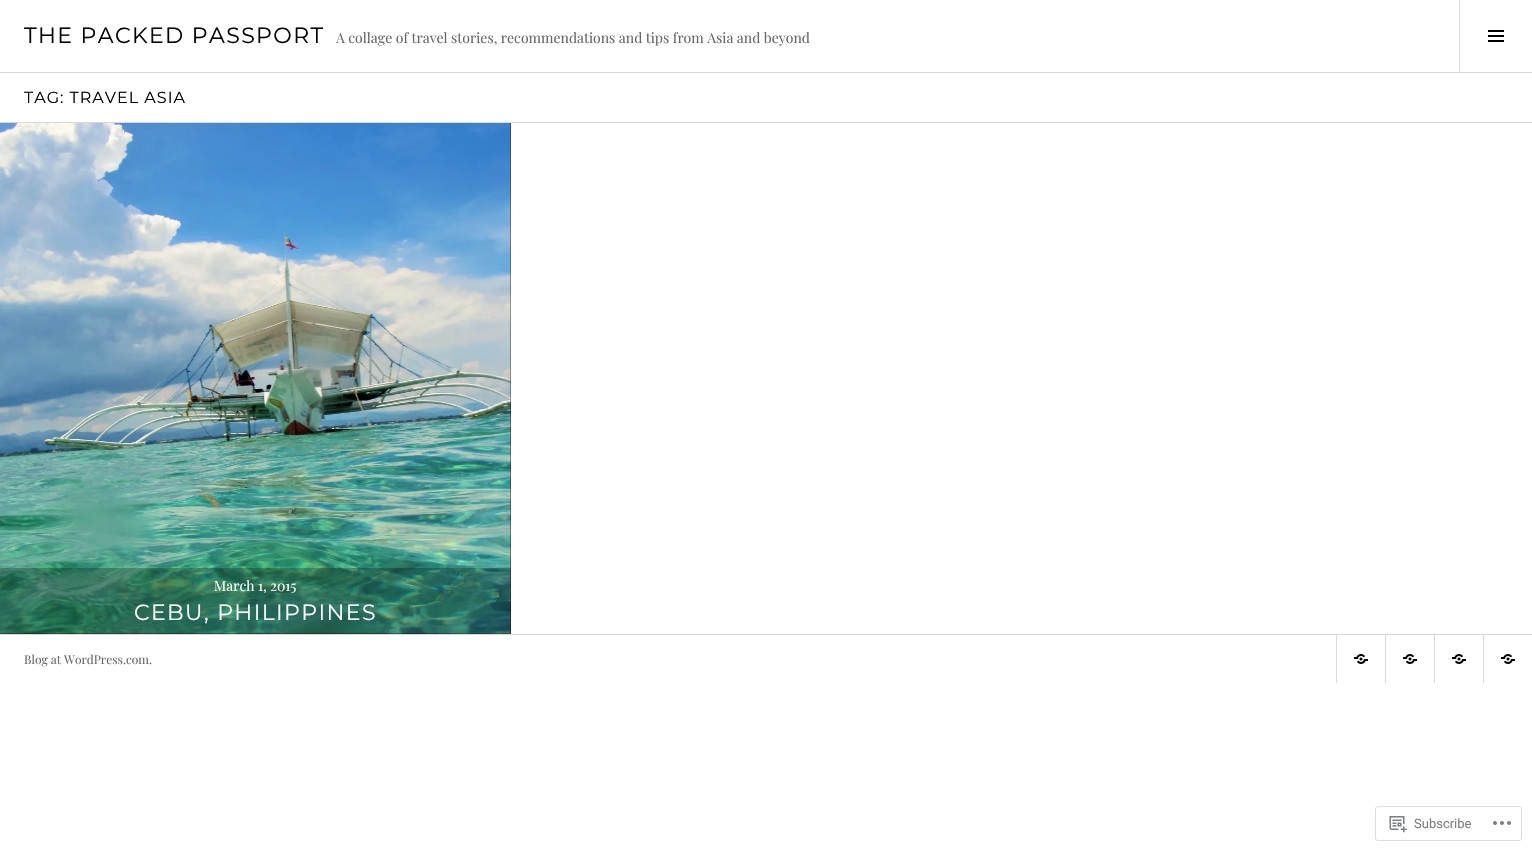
#include "include/core/SkBlurTypes.h"
#include "include/core/SkCanvas.h"
#include "include/core/SkData.h"
#include "include/core/SkFont.h"
#include "include/core/SkFontMgr.h"
#include "include/core/SkImage.h"
#include "include/core/SkMaskFilter.h"
#include "include/core/SkPaint.h"
#include "include/core/SkPathBuilder.h"
#include "include/core/SkTextBlob.h"
#include "include/effects/SkDashPathEffect.h"
#include "include/effects/SkGradientShader.h"
#include "include/utils/SkParsePath.h"

extern sk_sp<SkFontMgr> fontMgr;

void draw(SkCanvas* canvas) {
  SkPaint p;
  p.setAntiAlias(true);
  auto spacedText = [&](const char* s, float x, float y, const SkFont& font, const SkPaint& ink, float letter, float word) {
    std::vector<SkGlyphID> glyphs(font.countText(s, strlen(s), SkTextEncoding::kUTF8));
    std::vector<float> xs(glyphs.size());
    font.textToGlyphs(s, strlen(s), SkTextEncoding::kUTF8, glyphs);
    font.getXPos(glyphs, xs, x);
    float extra = 0;
    for (size_t i = 0; i < glyphs.size(); i++) {
      xs[i] += extra;
      extra += letter + word * (glyphs[i] == font.unicharToGlyph(' '));
    }
    canvas->drawTextBlob(SkTextBlob::MakeFromPosHGlyphs(glyphs, xs, y, font), 0, 0, ink);
  };
  canvas->clear(SK_ColorWHITE);
  p.setColor(SkColorSetRGB(217, 217, 217));
  canvas->drawRect(SkRect::MakeLTRB(0, 72, 1532, 73), p);
  canvas->drawRect(SkRect::MakeLTRB(1459, 0, 1460, 72), p);
  canvas->drawImageRect(SkImages::DeferredFromEncodedData(SkData::MakeFromFileName("images/1.png")), SkRect::MakeLTRB(1488, 30, 1504, 42), SkSamplingOptions());
  canvas->drawRect(SkRect::MakeLTRB(0, 122, 1532, 123), p);
  p.setColor(SK_ColorBLACK);
  canvas->drawRect(SkRect::MakeLTRB(0, 123, 511, 634), p);
  canvas->drawImageRect(SkImages::DeferredFromEncodedData(SkData::MakeFromFileName("images/2.png")), SkRect::MakeLTRB(0, 123, 511, 634), SkSamplingOptions());
  p.setColor(SkColorSetARGB(64, 0, 0, 0));
  canvas->drawRect(SkRect::MakeLTRB(0, 568, 511, 634), p);
  p.setColor(SkColorSetRGB(217, 217, 217));
  canvas->drawRect(SkRect::MakeLTRB(0, 634, 1532, 635), p);
  canvas->save();
  canvas->clipRect(SkRect::MakeLTRB(0, 635, 1532, 683));
  p.setStyle(SkPaint::kStroke_Style);
  p.setStrokeWidth(1);
  canvas->drawRect(SkRect::MakeLTRB(1336.5f, 634.5f, 1385.5f, 683.5f), p);
  canvas->restore();
  canvas->drawImageRect(SkImages::DeferredFromEncodedData(SkData::MakeFromFileName("images/3.png")), SkRect::MakeLTRB(1354, 654, 1368, 664), SkSamplingOptions());
  canvas->save();
  canvas->clipRect(SkRect::MakeLTRB(0, 635, 1532, 683));
  canvas->drawRect(SkRect::MakeLTRB(1385.5f, 634.5f, 1434.5f, 683.5f), p);
  canvas->restore();
  canvas->drawImageRect(SkImages::DeferredFromEncodedData(SkData::MakeFromFileName("images/3.png")), SkRect::MakeLTRB(1403, 654, 1417, 664), SkSamplingOptions());
  canvas->save();
  canvas->clipRect(SkRect::MakeLTRB(0, 635, 1532, 683));
  canvas->drawRect(SkRect::MakeLTRB(1434.5f, 634.5f, 1483.5f, 683.5f), p);
  canvas->restore();
  canvas->drawImageRect(SkImages::DeferredFromEncodedData(SkData::MakeFromFileName("images/3.png")), SkRect::MakeLTRB(1452, 654, 1466, 664), SkSamplingOptions());
  canvas->drawImageRect(SkImages::DeferredFromEncodedData(SkData::MakeFromFileName("images/3.png")), SkRect::MakeLTRB(1501, 654, 1515, 664), SkSamplingOptions());
  p.setColor(SkColorSetRGB(221, 221, 223));
  canvas->drawRoundRect(SkRect::MakeLTRB(1375.5f, 806.5f, 1521.5f, 840.5f), 2.5f, 2.5f, p);
  canvas->drawImageRect(SkImages::DeferredFromEncodedData(SkData::MakeFromFileName("images/4.png")), SkRect::MakeLTRB(1389, 816, 1407, 833), SkSamplingOptions());
  canvas->drawImageRect(SkImages::DeferredFromEncodedData(SkData::MakeFromFileName("images/5.png")), SkRect::MakeLTRB(1493, 821, 1511, 825), SkSamplingOptions());
  SkFont font1(fontMgr->matchFamilyStyle("Montserrat", SkFontStyle::Normal()), 22);
  font1.setSubpixel(true);
  p.setStyle(SkPaint::kFill_Style);
  p.setColor(SK_ColorBLACK);
  spacedText("THE PACKED PASSPORT", 24, 43, font1, p, 1.4f, 0);
  SkFont font2(fontMgr->matchFamilyStyle("Playfair Display", SkFontStyle::Normal()), 14);
  font2.setSubpixel(true);
  p.setColor(SkColorSetRGB(102, 102, 102));
  canvas->drawString("A collage of travel stories, recommendations and tips from Asia and beyond", 336, 43, font2, p);
  SkFont font3(fontMgr->matchFamilyStyle("Montserrat", SkFontStyle::Normal()), 16);
  font3.setSubpixel(true);
  p.setColor(SK_ColorBLACK);
  spacedText("TAG: TRAVEL ASIA", 24, 103, font3, p, 1, 0);
  p.setColor(SK_ColorWHITE);
  canvas->drawString("March 1, 2015", 214, 591, font2, p);
  spacedText("CEBU, PHILIPPINES", 134, 620, font1, p, 1.4f, 0);
  SkFont font4(fontMgr->matchFamilyStyle("Playfair Display", SkFontStyle::Normal()), 12);
  font4.setSubpixel(true);
  p.setColor(SkColorSetRGB(102, 102, 102));
  canvas->drawString("Blog at WordPress.com.", 24, 664, font4, p);
  SkFont font5(fontMgr->matchFamilyStyle("Roboto", SkFontStyle::Normal()), 13);
  font5.setSubpixel(true);
  p.setColor(SkColorSetRGB(123, 127, 133));
  canvas->drawString("Subscribe", 1414, 828, font5, p);
}
